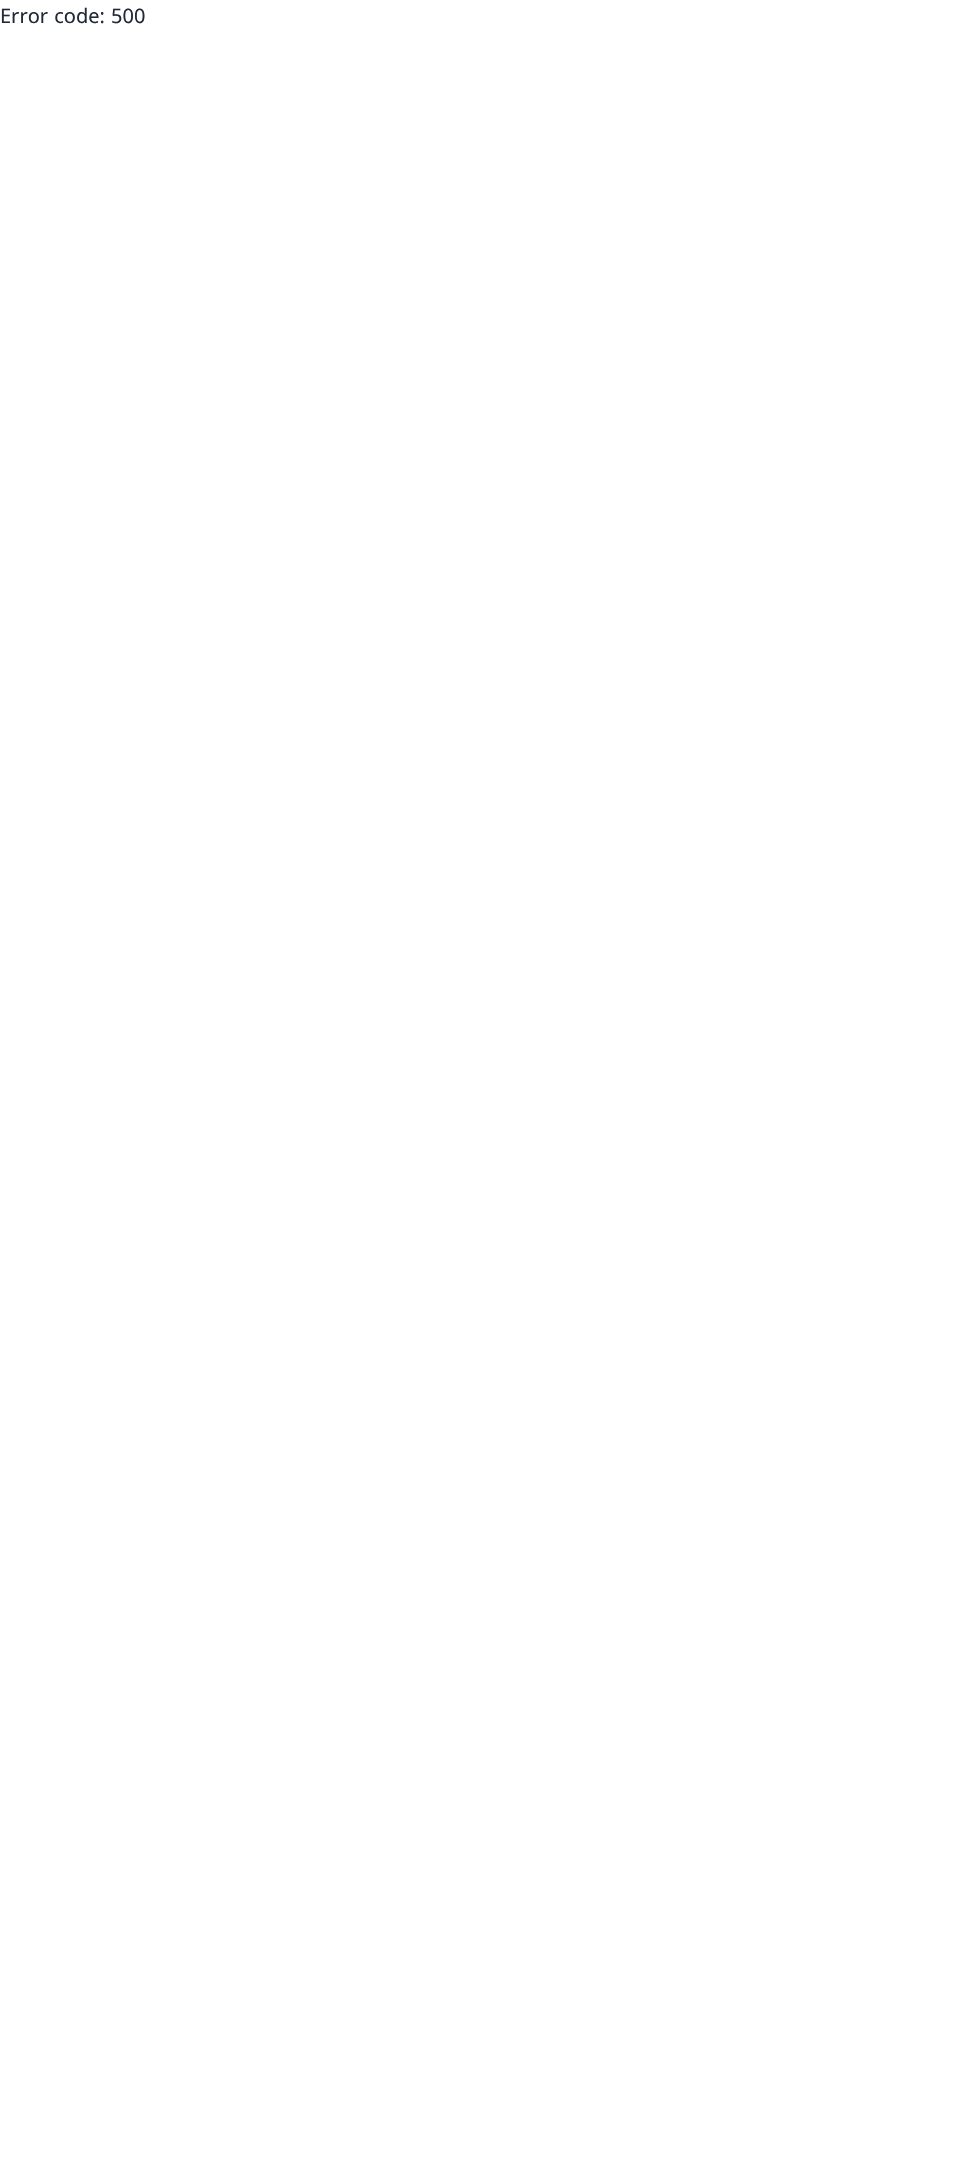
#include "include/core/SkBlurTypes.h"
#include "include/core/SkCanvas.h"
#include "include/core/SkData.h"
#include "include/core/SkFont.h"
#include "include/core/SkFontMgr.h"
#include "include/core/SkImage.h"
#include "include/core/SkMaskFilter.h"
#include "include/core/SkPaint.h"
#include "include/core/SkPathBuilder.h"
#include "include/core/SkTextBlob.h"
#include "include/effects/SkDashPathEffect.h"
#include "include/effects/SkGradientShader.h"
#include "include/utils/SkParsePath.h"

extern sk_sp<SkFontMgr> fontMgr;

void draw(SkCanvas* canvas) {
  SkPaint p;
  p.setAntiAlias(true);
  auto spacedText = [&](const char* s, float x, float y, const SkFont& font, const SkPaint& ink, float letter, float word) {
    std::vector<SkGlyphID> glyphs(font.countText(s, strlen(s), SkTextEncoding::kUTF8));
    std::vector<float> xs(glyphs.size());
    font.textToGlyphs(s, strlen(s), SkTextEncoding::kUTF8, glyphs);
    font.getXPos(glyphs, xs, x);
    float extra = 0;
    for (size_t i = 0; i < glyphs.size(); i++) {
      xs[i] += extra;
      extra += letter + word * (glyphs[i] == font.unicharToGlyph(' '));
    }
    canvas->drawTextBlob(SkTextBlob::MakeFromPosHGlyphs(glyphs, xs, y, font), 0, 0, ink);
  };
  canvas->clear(SK_ColorWHITE);
  SkFont font1(fontMgr->matchFamilyStyle("Noto Sans", SkFontStyle::Normal()), 20);
  font1.setSubpixel(true);
  p.setColor(SkColorSetRGB(31, 41, 55));
  spacedText("Error code: 500", 0, 23, font1, p, 0, 1);
}
